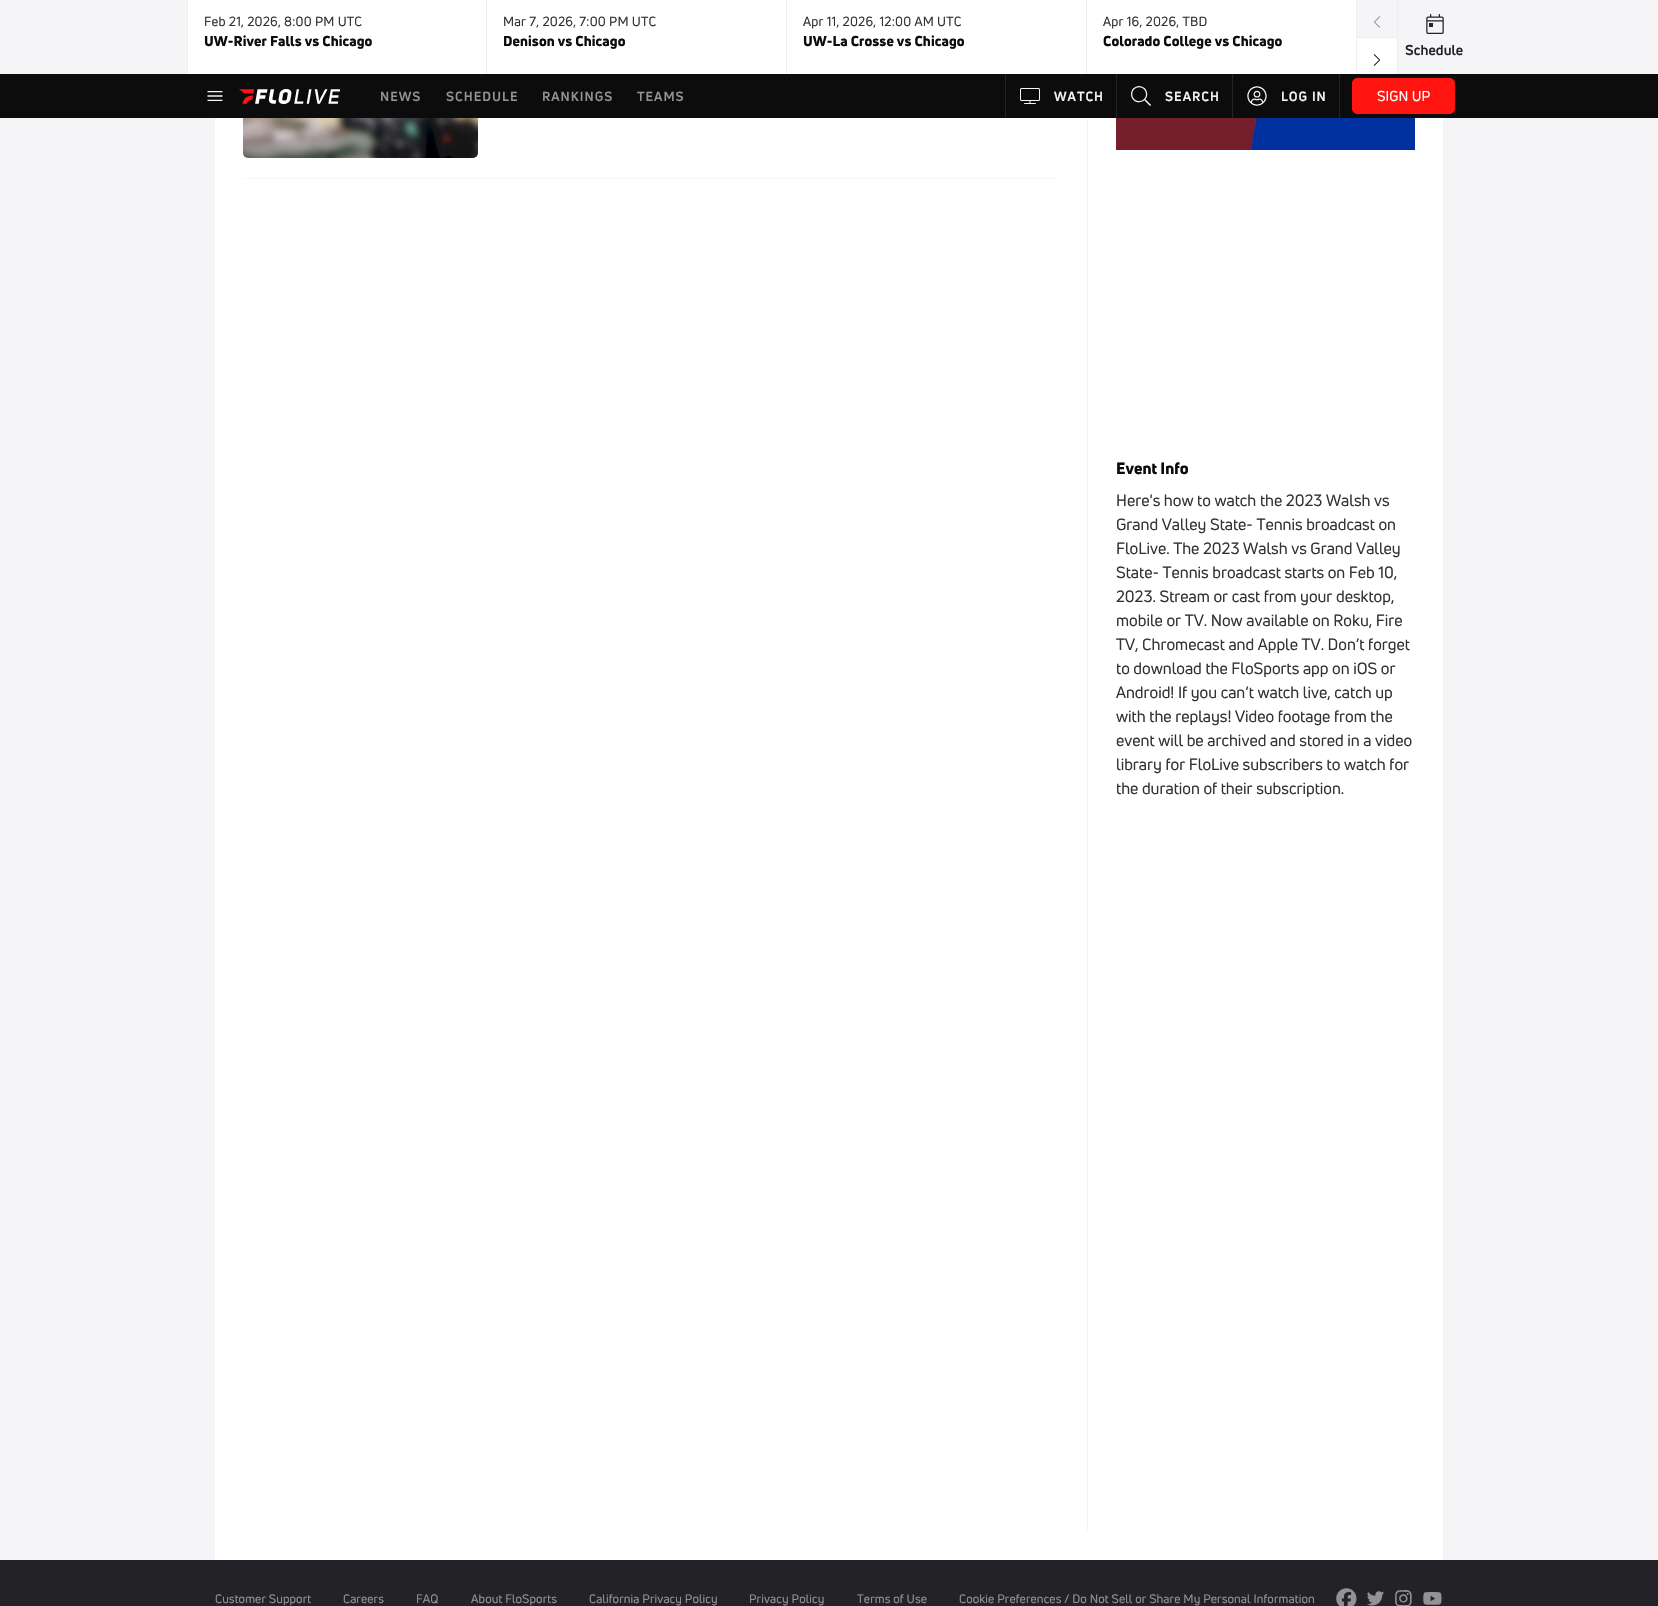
#include "include/core/SkBlurTypes.h"
#include "include/core/SkCanvas.h"
#include "include/core/SkData.h"
#include "include/core/SkFont.h"
#include "include/core/SkFontMgr.h"
#include "include/core/SkImage.h"
#include "include/core/SkMaskFilter.h"
#include "include/core/SkPaint.h"
#include "include/core/SkPathBuilder.h"
#include "include/core/SkTextBlob.h"
#include "include/effects/SkDashPathEffect.h"
#include "include/effects/SkGradientShader.h"
#include "include/utils/SkParsePath.h"

extern sk_sp<SkFontMgr> fontMgr;

void draw(SkCanvas* canvas) {
  SkPaint p;
  p.setAntiAlias(true);
  auto spacedText = [&](const char* s, float x, float y, const SkFont& font, const SkPaint& ink, float letter, float word) {
    std::vector<SkGlyphID> glyphs(font.countText(s, strlen(s), SkTextEncoding::kUTF8));
    std::vector<float> xs(glyphs.size());
    font.textToGlyphs(s, strlen(s), SkTextEncoding::kUTF8, glyphs);
    font.getXPos(glyphs, xs, x);
    float extra = 0;
    for (size_t i = 0; i < glyphs.size(); i++) {
      xs[i] += extra;
      extra += letter + word * (glyphs[i] == font.unicharToGlyph(' '));
    }
    canvas->drawTextBlob(SkTextBlob::MakeFromPosHGlyphs(glyphs, xs, y, font), 0, 0, ink);
  };
  canvas->clear(SkColorSetRGB(245, 245, 247));
  p.setColor(SK_ColorWHITE);
  canvas->drawRect(SkRect::MakeLTRB(188, 0, 1397, 74), p);
  p.setColor(SkColorSetRGB(238, 238, 240));
  canvas->drawRect(SkRect::MakeLTRB(486, 0, 487, 74), p);
  canvas->drawRect(SkRect::MakeLTRB(187, 0, 188, 74), p);
  canvas->drawRect(SkRect::MakeLTRB(786, 0, 787, 74), p);
  canvas->drawRect(SkRect::MakeLTRB(1086, 0, 1087, 74), p);
  canvas->drawRect(SkRect::MakeLTRB(1356, 0, 1357, 74), p);
  p.setColor(SkColorSetRGB(245, 245, 247));
  canvas->drawRect(SkRect::MakeLTRB(1357, 0, 1397, 37), p);
  canvas->drawImageRect(SkImages::DeferredFromEncodedData(SkData::MakeFromFileName("images/1.png")), SkRect::MakeLTRB(1374, 16, 1381, 28), SkSamplingOptions());
  p.setColor(SkColorSetRGB(238, 238, 240));
  canvas->drawRect(SkRect::MakeLTRB(1357, 37, 1397, 38), p);
  canvas->drawImageRect(SkImages::DeferredFromEncodedData(SkData::MakeFromFileName("images/2.png")), SkRect::MakeLTRB(1373, 54, 1381, 66), SkSamplingOptions());
  canvas->drawRect(SkRect::MakeLTRB(1397, 0, 1398, 74), p);
  canvas->drawImageRect(SkImages::DeferredFromEncodedData(SkData::MakeFromFileName("images/3.png")), SkRect::MakeLTRB(1426, 14, 1444, 34), SkSamplingOptions());
  p.setColor(SkColorSetRGB(12, 12, 12));
  canvas->drawRect(SkRect::MakeLTRB(0, 74, 1658, 118), p);
  canvas->drawImageRect(SkImages::DeferredFromEncodedData(SkData::MakeFromFileName("images/4.png")), SkRect::MakeLTRB(207, 91, 223, 101), SkSamplingOptions());
  canvas->drawImageRect(SkImages::DeferredFromEncodedData(SkData::MakeFromFileName("images/5.png")), SkRect::MakeLTRB(239, 89, 340, 104), SkSamplingOptions());
  p.setColor(SkColorSetRGB(35, 35, 39));
  canvas->drawRect(SkRect::MakeLTRB(1005, 74, 1006, 118), p);
  canvas->drawImageRect(SkImages::DeferredFromEncodedData(SkData::MakeFromFileName("images/6.png")), SkRect::MakeLTRB(1020, 88, 1040, 104), SkSamplingOptions());
  canvas->drawRect(SkRect::MakeLTRB(1116, 74, 1117, 118), p);
  canvas->drawImageRect(SkImages::DeferredFromEncodedData(SkData::MakeFromFileName("images/7.png")), SkRect::MakeLTRB(1131, 86, 1151, 106), SkSamplingOptions());
  canvas->drawRect(SkRect::MakeLTRB(1339, 74, 1340, 118), p);
  canvas->drawRect(SkRect::MakeLTRB(1232, 74, 1233, 118), p);
  canvas->drawImageRect(SkImages::DeferredFromEncodedData(SkData::MakeFromFileName("images/8.png")), SkRect::MakeLTRB(1247, 86, 1267, 106), SkSamplingOptions());
  p.setColor(SkColorSetRGB(255, 20, 15));
  canvas->drawRoundRect(SkRect::MakeLTRB(1352.5f, 78.5f, 1454.5f, 113.5f), 4.5f, 4.5f, p);
  p.setStyle(SkPaint::kStroke_Style);
  p.setStrokeWidth(1);
  canvas->drawRoundRect(SkRect::MakeLTRB(1352.5f, 78.5f, 1454.5f, 113.5f), 4.5f, 4.5f, p);
  p.setStyle(SkPaint::kFill_Style);
  p.setColor(SK_ColorWHITE);
  canvas->drawRect(SkRect::MakeLTRB(215, 118, 1443, 1560), p);
  p.setColor(SkColorSetRGB(245, 245, 247));
  canvas->drawRect(SkRect::MakeLTRB(243, 178, 1059, 179), p);
  canvas->drawImageRect(SkImages::DeferredFromEncodedData(SkData::MakeFromFileName("images/9.png")), SkRect::MakeLTRB(243, 118, 478, 158), SkSamplingOptions());
  canvas->drawRect(SkRect::MakeLTRB(1087, 118, 1088, 1532), p);
  canvas->drawImageRect(SkImages::DeferredFromEncodedData(SkData::MakeFromFileName("images/10.png")), SkRect::MakeLTRB(1116, 118, 1415, 150), SkSamplingOptions());
  p.setColor(SkColorSetRGB(35, 35, 39));
  canvas->drawRect(SkRect::MakeLTRB(0, 1560, 1658, 1606), p);
  canvas->drawImageRect(SkImages::DeferredFromEncodedData(SkData::MakeFromFileName("images/11.png")), SkRect::MakeLTRB(1336, 1588, 1357, 1606), SkSamplingOptions());
  canvas->drawImageRect(SkImages::DeferredFromEncodedData(SkData::MakeFromFileName("images/12.png")), SkRect::MakeLTRB(1367, 1591, 1384, 1606), SkSamplingOptions());
  canvas->drawImageRect(SkImages::DeferredFromEncodedData(SkData::MakeFromFileName("images/13.png")), SkRect::MakeLTRB(1395, 1590, 1412, 1606), SkSamplingOptions());
  canvas->drawImageRect(SkImages::DeferredFromEncodedData(SkData::MakeFromFileName("images/14.png")), SkRect::MakeLTRB(1423, 1592, 1442, 1605), SkSamplingOptions());
  SkFont font1(fontMgr->matchFamilyStyle("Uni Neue", SkFontStyle::Normal()), 13);
  font1.setSubpixel(true);
  p.setColor(SkColorSetRGB(50, 50, 54));
  spacedText("Feb 21, 2026, 8:00 PM UTC", 204, 26, font1, p, 0.2f, 0);
  SkFont font2(fontMgr->matchFamilyStyle("Uni Neue", SkFontStyle(900, SkFontStyle::kNormal_Width, SkFontStyle::kUpright_Slant)), 14);
  font2.setSubpixel(true);
  p.setColor(SkColorSetRGB(12, 12, 12));
  spacedText("UW-River Falls vs Chicago", 204, 46, font2, p, 0.1f, 0);
  p.setColor(SkColorSetRGB(50, 50, 54));
  spacedText("Mar 7, 2026, 7:00 PM UTC", 503, 26, font1, p, 0.2f, 0);
  p.setColor(SkColorSetRGB(12, 12, 12));
  spacedText("Denison vs Chicago", 503, 46, font2, p, 0.1f, 0);
  p.setColor(SkColorSetRGB(50, 50, 54));
  spacedText("Apr 11, 2026, 12:00 AM UTC", 803, 26, font1, p, 0.2f, 0);
  p.setColor(SkColorSetRGB(12, 12, 12));
  spacedText("UW-La Crosse vs Chicago", 803, 46, font2, p, 0.1f, 0);
  p.setColor(SkColorSetRGB(50, 50, 54));
  spacedText("Apr 16, 2026, TBD", 1103, 26, font1, p, 0.2f, 0);
  p.setColor(SkColorSetRGB(12, 12, 12));
  spacedText("Colorado College vs Chicago", 1103, 46, font2, p, 0.1f, 0);
  SkFont font3(fontMgr->matchFamilyStyle("Uni Neue", SkFontStyle::Bold()), 14);
  font3.setSubpixel(true);
  p.setColor(SkColorSetRGB(35, 35, 39));
  spacedText("Schedule", 1405, 55, font3, p, 0.1f, 0);
  SkFont font4(fontMgr->matchFamilyStyle("Uni Neue", SkFontStyle::Bold()), 13);
  font4.setSubpixel(true);
  p.setColor(SkColorSetRGB(147, 147, 150));
  spacedText("NEWS", 380, 101, font4, p, 1, 0);
  spacedText("SCHEDULE", 446, 101, font4, p, 1, 0);
  spacedText("RANKINGS", 542, 101, font4, p, 1, 0);
  spacedText("TEAMS", 637, 101, font4, p, 1, 0);
  p.setColor(SkColorSetRGB(245, 245, 247));
  spacedText("WATCH", 1054, 101, font4, p, 1, 0);
  spacedText("SEARCH", 1165, 101, font4, p, 1, 0);
  spacedText("LOG IN", 1281, 101, font4, p, 1, 0);
  SkFont font5(fontMgr->matchFamilyStyle("Uni Neue", SkFontStyle::Normal()), 14);
  font5.setSubpixel(true);
  p.setColor(SK_ColorWHITE);
  spacedText("SIGN UP", 1377, 101, font5, p, 0.1f, 0);
  SkFont font6(fontMgr->matchFamilyStyle("Uni Neue", SkFontStyle(900, SkFontStyle::kNormal_Width, SkFontStyle::kUpright_Slant)), 16);
  font6.setSubpixel(true);
  p.setColor(SkColorSetRGB(12, 12, 12));
  canvas->drawString("Event Info", 1116, 474, font6, p);
  SkFont font7(fontMgr->matchFamilyStyle("Uni Neue", SkFontStyle::Normal()), 16);
  font7.setSubpixel(true);
  p.setColor(SkColorSetRGB(50, 50, 54));
  canvas->drawString("Here's how to watch the 2023 Walsh vs", 1116, 506, font7, p);
  canvas->drawString("Grand Valley State- Tennis broadcast on", 1116, 530, font7, p);
  canvas->drawString("FloLive. The 2023 Walsh vs Grand Valley", 1116, 554, font7, p);
  canvas->drawString("State- Tennis broadcast starts on Feb 10,", 1116, 578, font7, p);
  canvas->drawString("2023. Stream or cast from your desktop,", 1116, 602, font7, p);
  canvas->drawString("mobile or TV. Now available on Roku, Fire", 1116, 626, font7, p);
  canvas->drawString("TV, Chromecast and Apple TV. Don’t forget", 1116, 650, font7, p);
  canvas->drawString("to download the FloSports app on iOS or", 1116, 674, font7, p);
  canvas->drawString("Android! If you can’t watch live, catch up", 1116, 698, font7, p);
  canvas->drawString("with the replays! Video footage from the", 1116, 722, font7, p);
  canvas->drawString("event will be archived and stored in a video", 1116, 746, font7, p);
  canvas->drawString("library for FloLive subscribers to watch for", 1116, 770, font7, p);
  canvas->drawString("the duration of their subscription.", 1116, 794, font7, p);
  SkFont font8(fontMgr->matchFamilyStyle("Uni Neue", SkFontStyle::Normal()), 12);
  font8.setSubpixel(true);
  p.setColor(SkColorSetRGB(147, 147, 150));
  spacedText("Customer Support", 215, 1603, font8, p, 0.1f, 0);
  spacedText("Careers", 343, 1603, font8, p, 0.1f, 0);
  spacedText("FAQ", 416, 1603, font8, p, 0.1f, 0);
  spacedText("About FloSports", 471, 1603, font8, p, 0.1f, 0);
  spacedText("California Privacy Policy", 589, 1603, font8, p, 0.1f, 0);
  spacedText("Privacy Policy", 749, 1603, font8, p, 0.1f, 0);
  spacedText("Terms of Use", 857, 1603, font8, p, 0.1f, 0);
  spacedText("Cookie Preferences / Do Not Sell or Share My Personal Information", 959, 1603, font8, p, 0.1f, 0);
}
